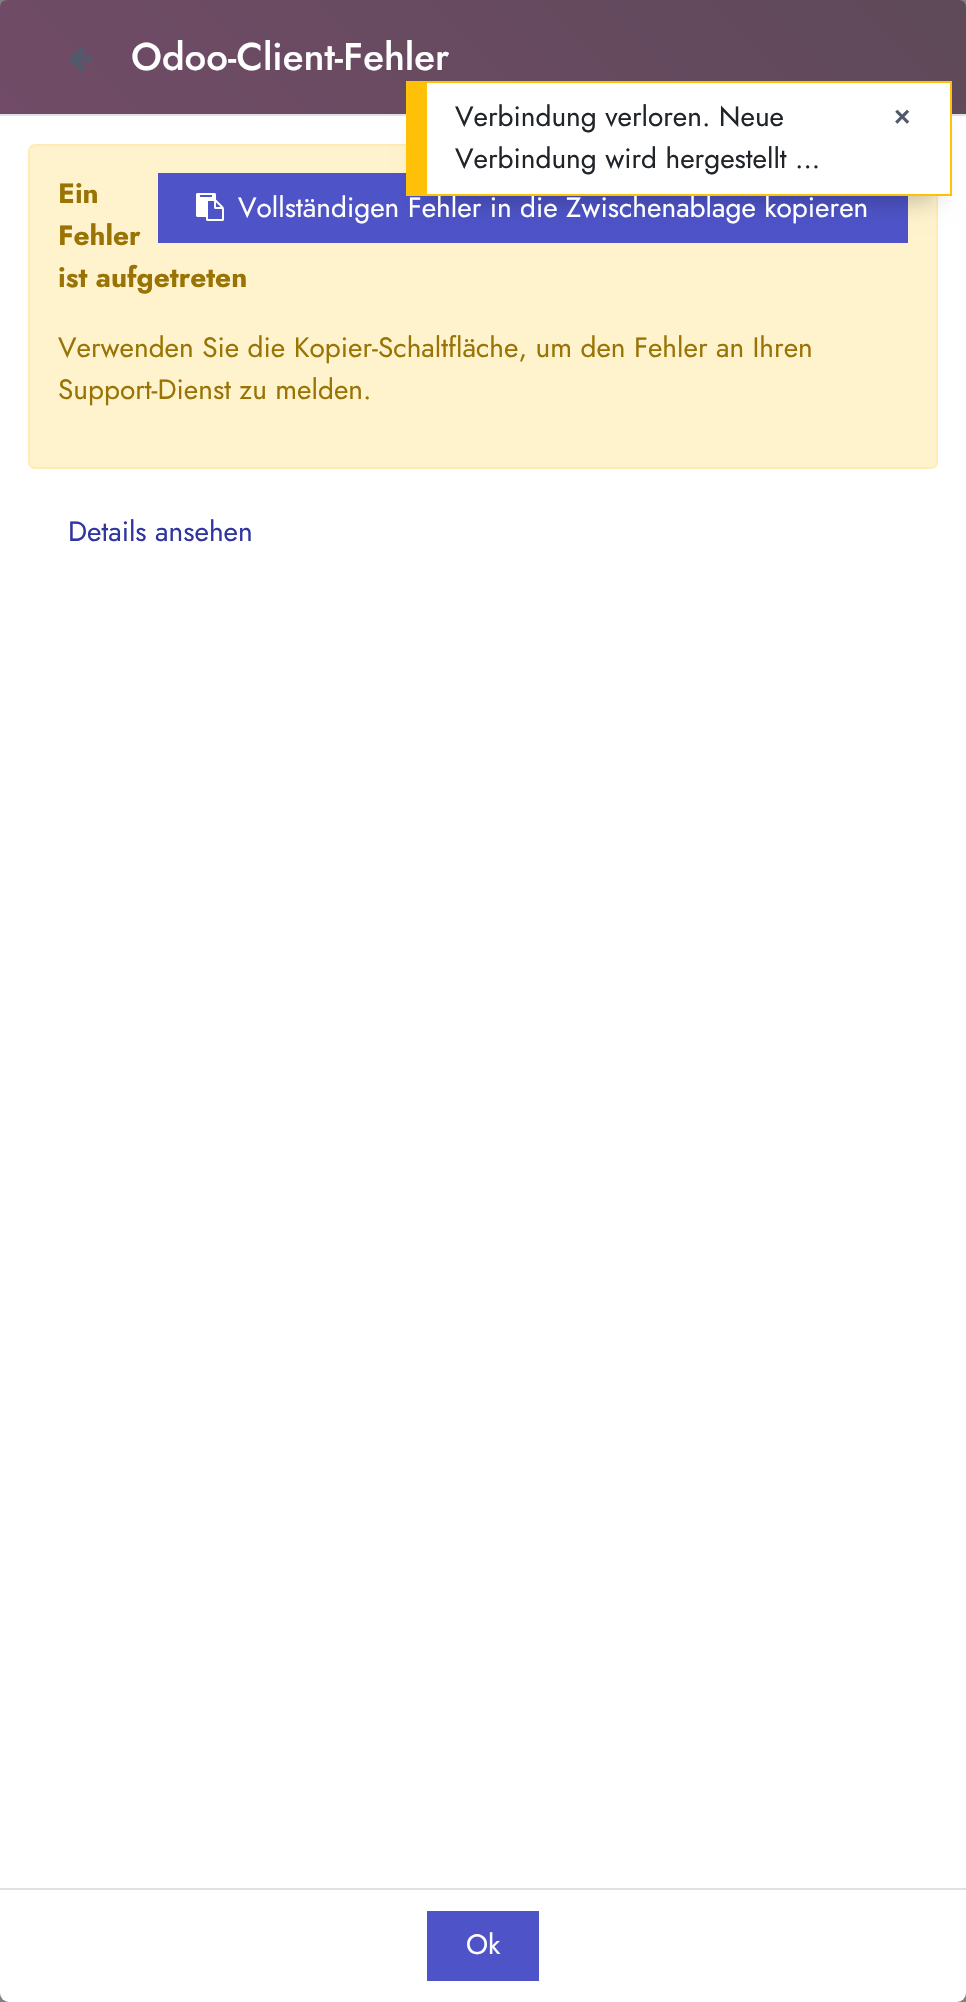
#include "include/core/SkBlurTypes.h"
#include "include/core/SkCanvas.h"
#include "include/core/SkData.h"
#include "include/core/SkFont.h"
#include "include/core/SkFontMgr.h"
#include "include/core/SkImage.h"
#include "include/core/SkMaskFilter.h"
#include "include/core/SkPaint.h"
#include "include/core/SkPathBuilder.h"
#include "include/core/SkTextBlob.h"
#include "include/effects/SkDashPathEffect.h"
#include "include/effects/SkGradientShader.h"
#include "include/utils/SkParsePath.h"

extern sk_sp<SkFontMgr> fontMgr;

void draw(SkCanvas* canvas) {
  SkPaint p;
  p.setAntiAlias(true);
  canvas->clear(SkColorSetRGB(128, 128, 128));
  p.setColor(SK_ColorWHITE);
  canvas->drawRoundRect(SkRect::MakeLTRB(0, 0, 966, 2002), 9, 9, p);
  {
    const SkColor colors[] = {SkColorSetRGB(113, 75, 103), SkColorSetRGB(94, 74, 89)};
    const float stops[] = {0, 1};
    const SkPoint ends[] = {{213, 327}, {753, -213}};
    p.setShader(SkGradientShader::MakeLinear(ends, colors, stops, 2, SkTileMode::kClamp));
    p.setAlpha(255);
  }
  canvas->drawPath(SkPathBuilder().moveTo(7, 0).lineTo(959, 0).cubicTo(963, 0, 966, 3, 966, 7).lineTo(966, 114).lineTo(0, 114).lineTo(0, 7).cubicTo(0, 3, 3, 0, 7, 0).close().detach(), p);
  p.setShader(nullptr);
  p.setColor(SkColorSetRGB(222, 226, 230));
  canvas->drawRect(SkRect::MakeLTRB(0, 114, 966, 116), p);
  canvas->drawImageRect(SkImages::DeferredFromEncodedData(SkData::MakeFromFileName("images/1.png")), SkRect::MakeLTRB(69, 47, 93, 72), SkSamplingOptions());
  p.setColor(SkColorSetRGB(255, 243, 205));
  canvas->drawRoundRect(SkRect::MakeLTRB(29, 145, 937, 468), 6, 6, p);
  p.setStyle(SkPaint::kStroke_Style);
  p.setStrokeWidth(2);
  p.setColor(SkColorSetRGB(255, 236, 181));
  canvas->drawRoundRect(SkRect::MakeLTRB(29, 145, 937, 468), 6, 6, p);
  p.setStyle(SkPaint::kFill_Style);
  p.setColor(SkColorSetRGB(78, 84, 200));
  canvas->drawRect(SkRect::MakeLTRB(158, 173, 908, 243), p);
  canvas->drawImageRect(SkImages::DeferredFromEncodedData(SkData::MakeFromFileName("images/2.png")), SkRect::MakeLTRB(196, 193, 224, 221), SkSamplingOptions());
  p.setColor(SkColorSetRGB(222, 226, 230));
  canvas->drawRect(SkRect::MakeLTRB(0, 1888, 966, 1890), p);
  p.setColor(SkColorSetRGB(78, 84, 200));
  canvas->drawRect(SkRect::MakeLTRB(427, 1911, 539, 1981), p);
  p.setColor(SkColorSetARGB(64, 0, 0, 0));
  p.setMaskFilter(SkMaskFilter::MakeBlur(kNormal_SkBlurStyle, 12));
  canvas->drawRect(SkRect::MakeLTRB(424, 119, 935, 200), p);
  p.setMaskFilter(nullptr);
  p.setColor(SK_ColorWHITE);
  canvas->drawRect(SkRect::MakeLTRB(427, 83, 950, 194), p);
  p.setColor(SkColorSetRGB(255, 193, 7));
  canvas->drawRect(SkRect::MakeLTRB(427, 81, 952, 83), p);
  canvas->drawRect(SkRect::MakeLTRB(950, 81, 952, 196), p);
  SkFont font1(fontMgr->matchFamilyStyle("Jost", SkFontStyle(500, SkFontStyle::kNormal_Width, SkFontStyle::kUpright_Slant)), 38.5f);
  font1.setSubpixel(true);
  p.setColor(SK_ColorWHITE);
  canvas->drawString("Odoo-Client-Fehler", 131, 70, font1, p);
  SkFont font2(fontMgr->matchFamilyStyle("Jost", SkFontStyle::Bold()), 28);
  font2.setSubpixel(true);
  p.setColor(SkColorSetRGB(153, 116, 4));
  canvas->drawString("Ein", 58, 203, font2, p);
  canvas->drawString("Fehler", 58, 245, font2, p);
  canvas->drawString("ist aufgetreten", 58, 287, font2, p);
  SkFont font3(fontMgr->matchFamilyStyle("Jost", SkFontStyle::Normal()), 28);
  font3.setSubpixel(true);
  p.setColor(SK_ColorWHITE);
  canvas->drawString("Vollständigen Fehler in die Zwischenablage kopieren", 238, 217, font3, p);
  p.setColor(SkColorSetRGB(153, 116, 4));
  canvas->drawString("Verwenden Sie die Kopier-Schaltfläche, um den Fehler an Ihren", 58, 357, font3, p);
  canvas->drawString("Support-Dienst zu melden.", 58, 399, font3, p);
  p.setColor(SkColorSetRGB(49, 54, 158));
  canvas->drawString("Details ansehen", 68, 541, font3, p);
  p.setColor(SK_ColorWHITE);
  canvas->drawString("Ok", 466, 1954, font3, p);
  p.setColor(SkColorSetRGB(255, 193, 7));
  canvas->drawRect(SkRect::MakeLTRB(427, 194, 952, 196), p);
  canvas->drawRect(SkRect::MakeLTRB(406, 81, 427, 196), p);
  p.setColor(SkColorSetRGB(33, 37, 41));
  canvas->drawString("Verbindung verloren. Neue", 455, 126, font3, p);
  canvas->drawString("Verbindung wird hergestellt ...", 455, 168, font3, p);
  SkFont font4(fontMgr->matchFamilyStyle("Liberation Sans", SkFontStyle::Bold()), 28);
  font4.setSubpixel(true);
  p.setColor(SkColorSetRGB(81, 89, 108));
  canvas->drawString("×", 894, 126, font4, p);
}
